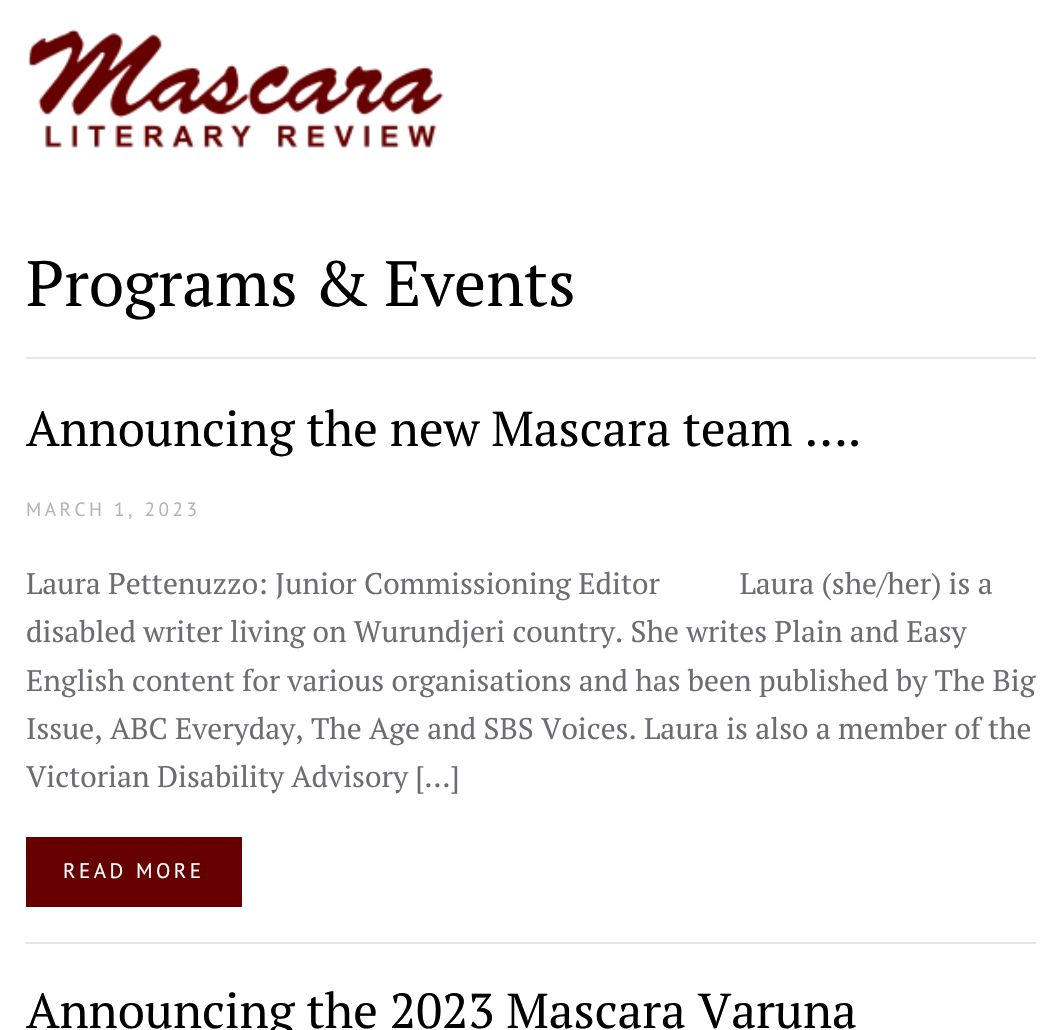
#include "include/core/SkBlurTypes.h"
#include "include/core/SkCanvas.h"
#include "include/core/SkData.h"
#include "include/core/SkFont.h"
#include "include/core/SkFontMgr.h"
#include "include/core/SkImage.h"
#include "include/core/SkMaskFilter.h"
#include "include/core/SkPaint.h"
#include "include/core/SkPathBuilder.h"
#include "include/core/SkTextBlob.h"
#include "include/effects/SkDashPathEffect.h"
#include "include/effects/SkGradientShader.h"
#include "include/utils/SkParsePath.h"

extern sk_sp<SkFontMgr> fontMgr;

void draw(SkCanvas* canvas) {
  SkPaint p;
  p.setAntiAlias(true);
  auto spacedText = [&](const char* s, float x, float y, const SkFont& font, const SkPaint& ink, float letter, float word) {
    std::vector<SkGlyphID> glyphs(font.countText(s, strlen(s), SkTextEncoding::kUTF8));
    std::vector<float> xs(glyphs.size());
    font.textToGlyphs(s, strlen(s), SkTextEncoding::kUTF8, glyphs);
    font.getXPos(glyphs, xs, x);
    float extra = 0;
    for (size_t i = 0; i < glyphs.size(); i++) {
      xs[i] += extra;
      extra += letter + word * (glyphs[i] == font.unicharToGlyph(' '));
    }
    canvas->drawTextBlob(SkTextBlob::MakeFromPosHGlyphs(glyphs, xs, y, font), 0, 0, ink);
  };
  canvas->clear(SK_ColorWHITE);
  canvas->drawImageRect(SkImages::DeferredFromEncodedData(SkData::MakeFromFileName("images/1.png")), SkRect::MakeLTRB(28, 29, 444, 148), SkSamplingOptions());
  p.setColor(SkColorSetRGB(229, 229, 231));
  canvas->drawRect(SkRect::MakeLTRB(26, 357, 1036, 359), p);
  p.setColor(SkColorSetRGB(102, 0, 0));
  canvas->drawRect(SkRect::MakeLTRB(26, 837, 242, 907), p);
  p.setColor(SkColorSetRGB(229, 229, 231));
  canvas->drawRect(SkRect::MakeLTRB(26, 942, 1036, 944), p);
  SkFont font1(fontMgr->matchFamilyStyle("PT Serif", SkFontStyle::Normal()), 64);
  font1.setSubpixel(true);
  p.setColor(SK_ColorBLACK);
  canvas->drawString("Programs & Events", 26, 306, font1, p);
  SkFont font2(fontMgr->matchFamilyStyle("PT Serif", SkFontStyle::Normal()), 49);
  font2.setSubpixel(true);
  canvas->drawString("Announcing the new Mascara team ….", 26, 446, font2, p);
  SkFont font3(fontMgr->matchFamilyStyle("PT Sans", SkFontStyle::Normal()), 19.25f);
  font3.setSubpixel(true);
  p.setColor(SkColorSetRGB(180, 181, 186));
  spacedText("MARCH 1, 2023", 26, 516, font3, p, 3.5f, 0);
  SkFont font4(fontMgr->matchFamilyStyle("PT Serif", SkFontStyle::Normal()), 29.75f);
  font4.setSubpixel(true);
  p.setColor(SkColorSetRGB(108, 109, 116));
  canvas->drawString("Laura Pettenuzzo: Junior Commissioning Editor           Laura (she/her) is a", 26, 594, font4, p);
  canvas->drawString("disabled writer living on Wurundjeri country. She writes Plain and Easy", 26, 642, font4, p);
  canvas->drawString("English content for various organisations and has been published by The Big", 26, 691, font4, p);
  canvas->drawString("Issue, ABC Everyday, The Age and SBS Voices. Laura is also a member of the", 26, 739, font4, p);
  canvas->drawString("Victorian Disability Advisory […]", 26, 787, font4, p);
  SkFont font5(fontMgr->matchFamilyStyle("PT Sans", SkFontStyle::Normal()), 21);
  font5.setSubpixel(true);
  p.setColor(SK_ColorWHITE);
  spacedText("READ MORE", 63, 878, font5, p, 3.5f, 0);
  p.setColor(SK_ColorBLACK);
  canvas->drawString("Announcing the 2023 Mascara Varuna", 26, 1028, font2, p);
}
